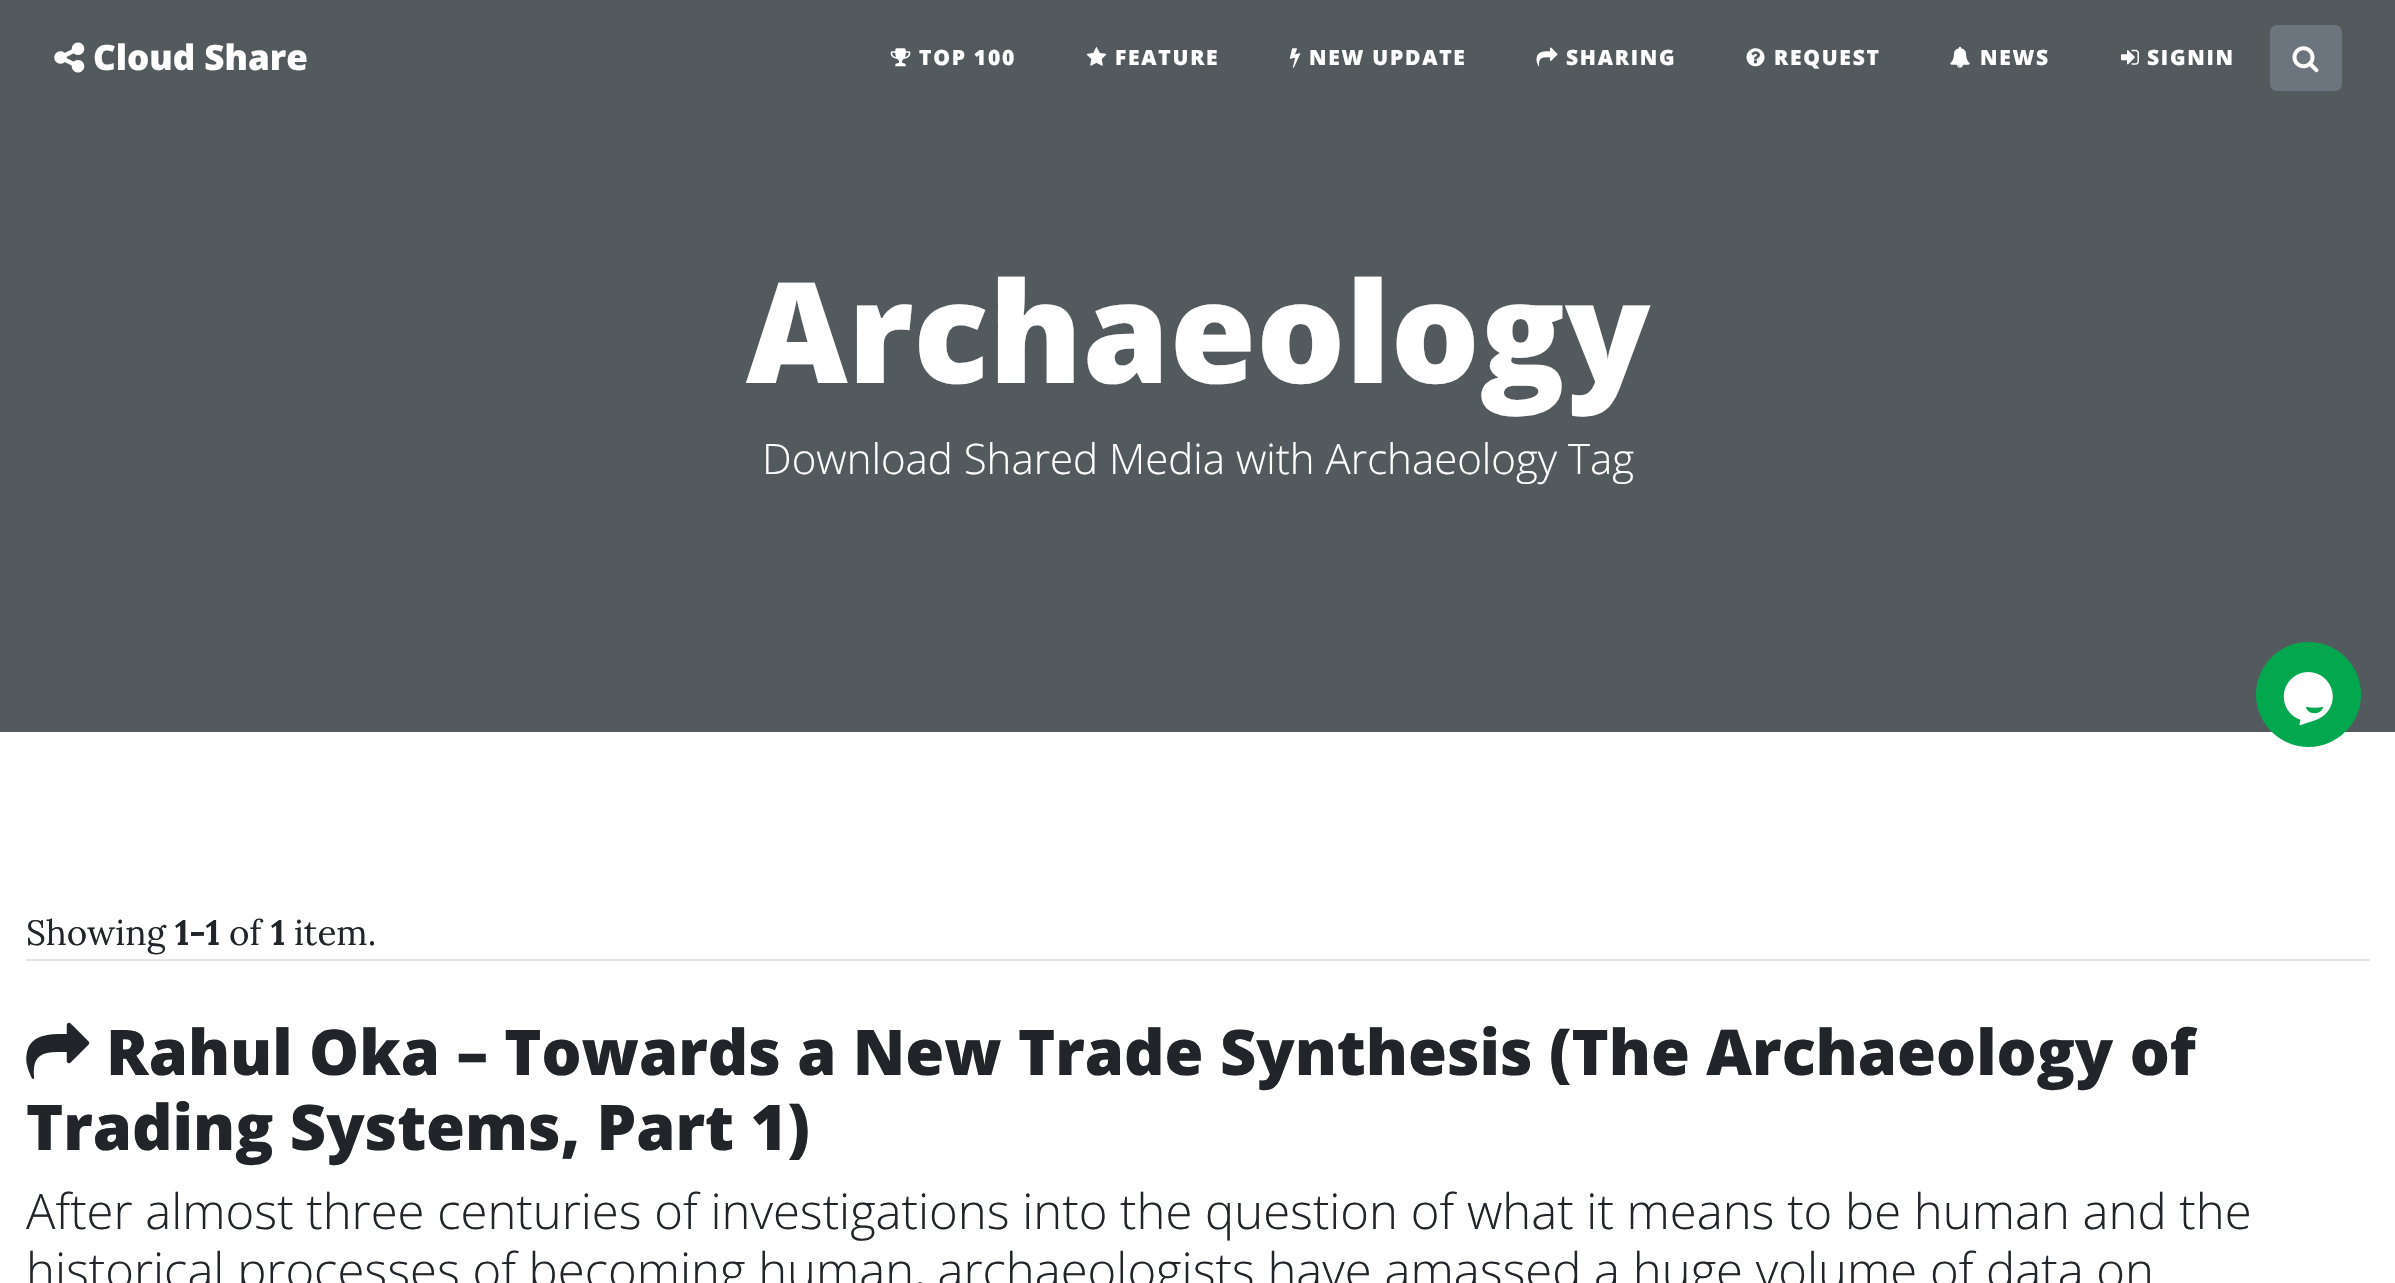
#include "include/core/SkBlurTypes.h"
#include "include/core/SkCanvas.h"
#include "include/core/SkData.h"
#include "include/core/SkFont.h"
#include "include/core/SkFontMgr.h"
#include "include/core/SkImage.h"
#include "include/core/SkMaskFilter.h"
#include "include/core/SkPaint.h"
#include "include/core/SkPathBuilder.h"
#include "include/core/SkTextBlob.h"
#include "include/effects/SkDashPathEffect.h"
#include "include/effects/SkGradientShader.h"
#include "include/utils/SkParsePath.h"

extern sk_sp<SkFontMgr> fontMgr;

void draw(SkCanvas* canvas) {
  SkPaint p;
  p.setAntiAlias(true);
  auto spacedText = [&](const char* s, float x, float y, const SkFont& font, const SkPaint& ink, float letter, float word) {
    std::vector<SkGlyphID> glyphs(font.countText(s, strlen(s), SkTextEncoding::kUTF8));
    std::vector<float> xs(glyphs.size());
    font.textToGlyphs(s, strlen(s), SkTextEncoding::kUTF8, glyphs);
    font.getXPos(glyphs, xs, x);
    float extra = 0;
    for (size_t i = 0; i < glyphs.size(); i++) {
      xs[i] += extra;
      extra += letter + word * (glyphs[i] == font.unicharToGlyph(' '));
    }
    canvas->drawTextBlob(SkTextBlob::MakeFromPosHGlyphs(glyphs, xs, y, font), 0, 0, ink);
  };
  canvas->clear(SK_ColorWHITE);
  p.setColor(SkColorSetRGB(83, 90, 94));
  canvas->drawRect(SkRect::MakeLTRB(0, 0, 2395, 732), p);
  canvas->drawImageRect(SkImages::DeferredFromEncodedData(SkData::MakeFromFileName("images/1.png")), SkRect::MakeLTRB(54, 42, 85, 73), SkSamplingOptions());
  canvas->drawImageRect(SkImages::DeferredFromEncodedData(SkData::MakeFromFileName("images/2.png")), SkRect::MakeLTRB(890, 48, 911, 67), SkSamplingOptions());
  canvas->drawImageRect(SkImages::DeferredFromEncodedData(SkData::MakeFromFileName("images/3.png")), SkRect::MakeLTRB(1086, 47, 1107, 66), SkSamplingOptions());
  canvas->drawImageRect(SkImages::DeferredFromEncodedData(SkData::MakeFromFileName("images/4.png")), SkRect::MakeLTRB(1289, 48, 1301, 68), SkSamplingOptions());
  canvas->drawImageRect(SkImages::DeferredFromEncodedData(SkData::MakeFromFileName("images/5.png")), SkRect::MakeLTRB(1536, 47, 1558, 67), SkSamplingOptions());
  canvas->drawImageRect(SkImages::DeferredFromEncodedData(SkData::MakeFromFileName("images/6.png")), SkRect::MakeLTRB(1746, 48, 1765, 67), SkSamplingOptions());
  canvas->drawImageRect(SkImages::DeferredFromEncodedData(SkData::MakeFromFileName("images/7.png")), SkRect::MakeLTRB(1950, 46, 1970, 68), SkSamplingOptions());
  canvas->drawImageRect(SkImages::DeferredFromEncodedData(SkData::MakeFromFileName("images/8.png")), SkRect::MakeLTRB(2121, 49, 2139, 65), SkSamplingOptions());
  p.setColor(SkColorSetRGB(108, 117, 125));
  canvas->drawRoundRect(SkRect::MakeLTRB(2271, 26, 2341, 90), 6, 6, p);
  p.setStyle(SkPaint::kStroke_Style);
  p.setStrokeWidth(2);
  canvas->drawRoundRect(SkRect::MakeLTRB(2271, 26, 2341, 90), 6, 6, p);
  canvas->drawImageRect(SkImages::DeferredFromEncodedData(SkData::MakeFromFileName("images/9.png")), SkRect::MakeLTRB(2292, 46, 2319, 73), SkSamplingOptions());
  p.setStyle(SkPaint::kFill_Style);
  p.setColor(SkColorSetRGB(230, 230, 230));
  canvas->drawRect(SkRect::MakeLTRB(26, 959, 2370, 961), p);
  canvas->drawImageRect(SkImages::DeferredFromEncodedData(SkData::MakeFromFileName("images/10.png")), SkRect::MakeLTRB(26, 1022, 90, 1079), SkSamplingOptions());
  p.setColor(SkColorSetRGB(3, 168, 78));
  canvas->drawCircle(2308.5f, 694.5f, 52.5f, p);
  canvas->drawImageRect(SkImages::DeferredFromEncodedData(SkData::MakeFromFileName("images/11.png")), SkRect::MakeLTRB(2283, 672, 2333, 726), SkSamplingOptions());
  SkFont font1(fontMgr->matchFamilyStyle("Open Sans", SkFontStyle(800, SkFontStyle::kNormal_Width, SkFontStyle::kUpright_Slant)), 35);
  font1.setSubpixel(true);
  p.setColor(SK_ColorWHITE);
  canvas->drawString("Cloud Share", 93, 70, font1, p);
  SkFont font2(fontMgr->matchFamilyStyle("Open Sans", SkFontStyle(800, SkFontStyle::kNormal_Width, SkFontStyle::kUpright_Slant)), 21);
  font2.setSubpixel(true);
  spacedText("TOP 100", 919, 65, font2, p, 1.75f, 0);
  spacedText("FEATURE", 1115, 65, font2, p, 1.75f, 0);
  spacedText("NEW UPDATE", 1309, 65, font2, p, 1.75f, 0);
  spacedText("SHARING", 1566, 65, font2, p, 1.75f, 0);
  spacedText("REQUEST", 1774, 65, font2, p, 1.75f, 0);
  spacedText("NEWS", 1980, 65, font2, p, 1.75f, 0);
  spacedText("SIGNIN", 2147, 65, font2, p, 1.75f, 0);
  SkFont font3(fontMgr->matchFamilyStyle("Open Sans", SkFontStyle(800, SkFontStyle::kNormal_Width, SkFontStyle::kUpright_Slant)), 140);
  font3.setSubpixel(true);
  canvas->drawString("Archaeology", 746, 383, font3, p);
  SkFont font4(fontMgr->matchFamilyStyle("Open Sans", SkFontStyle(300, SkFontStyle::kNormal_Width, SkFontStyle::kUpright_Slant)), 42);
  font4.setSubpixel(true);
  canvas->drawString("Download Shared Media with Archaeology Tag", 762, 474, font4, p);
  SkFont font5(fontMgr->matchFamilyStyle("Lora", SkFontStyle::Normal()), 35);
  font5.setSubpixel(true);
  p.setColor(SkColorSetRGB(33, 37, 41));
  canvas->drawString("Showing", 26, 945, font5, p);
  SkFont font6(fontMgr->matchFamilyStyle("Lora", SkFontStyle::Bold()), 35);
  font6.setSubpixel(true);
  canvas->drawString("1-1", 175, 945, font6, p);
  canvas->drawString("of", 229, 945, font5, p);
  canvas->drawString("1", 271, 945, font6, p);
  canvas->drawString("item.", 294, 945, font5, p);
  SkFont font7(fontMgr->matchFamilyStyle("Open Sans", SkFontStyle(800, SkFontStyle::kNormal_Width, SkFontStyle::kUpright_Slant)), 63);
  font7.setSubpixel(true);
  canvas->drawString("Rahul Oka – Towards a New Trade Synthesis (The Archaeology of", 106, 1075, font7, p);
  canvas->drawString("Trading Systems, Part 1)", 26, 1150, font7, p);
  SkFont font8(fontMgr->matchFamilyStyle("Open Sans", SkFontStyle(300, SkFontStyle::kNormal_Width, SkFontStyle::kUpright_Slant)), 49);
  font8.setSubpixel(true);
  canvas->drawString("After almost three centuries of investigations into the question of what it means to be human and the", 26, 1229, font8, p);
  canvas->drawString("historical processes of becoming human, archaeologists have amassed a huge volume of data on", 26, 1288, font8, p);
}
